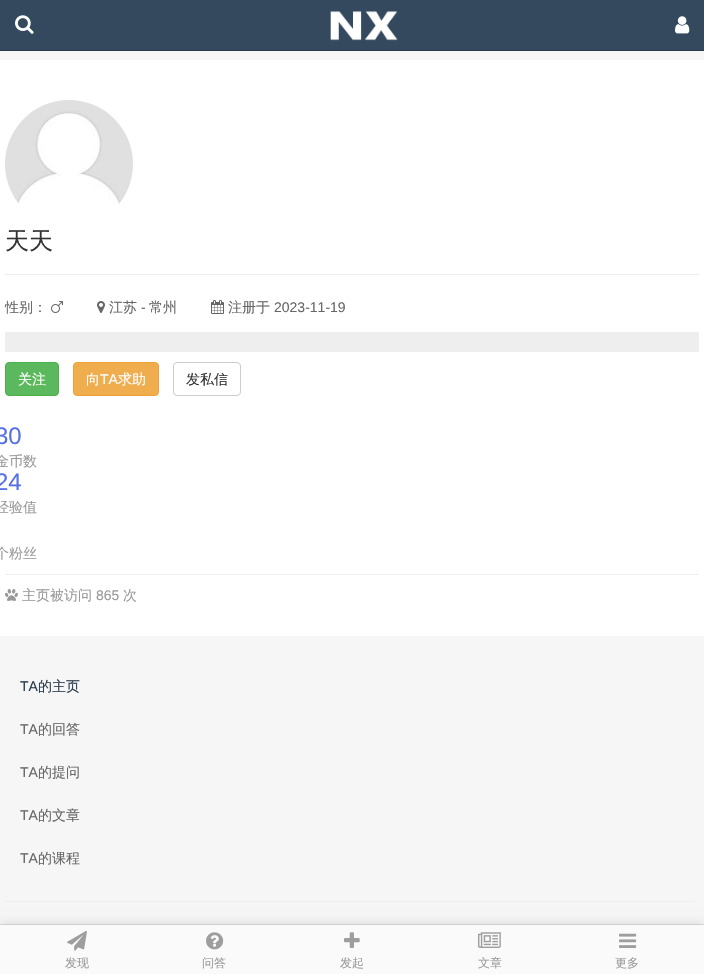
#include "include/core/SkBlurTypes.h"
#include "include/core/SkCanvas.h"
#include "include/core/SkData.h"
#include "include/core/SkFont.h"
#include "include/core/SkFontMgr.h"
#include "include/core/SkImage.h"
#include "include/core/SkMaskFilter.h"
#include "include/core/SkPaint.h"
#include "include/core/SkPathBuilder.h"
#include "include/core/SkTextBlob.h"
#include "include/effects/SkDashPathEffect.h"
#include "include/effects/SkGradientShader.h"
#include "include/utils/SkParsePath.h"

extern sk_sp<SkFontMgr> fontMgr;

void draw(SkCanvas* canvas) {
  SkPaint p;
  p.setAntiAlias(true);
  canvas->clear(SkColorSetRGB(246, 246, 246));
  p.setColor(SK_ColorWHITE);
  canvas->drawRect(SkRect::MakeLTRB(0, 60, 704, 636), p);
  canvas->drawImageRect(SkImages::DeferredFromEncodedData(SkData::MakeFromFileName("images/1.png")), SkRect::MakeLTRB(5, 100, 133, 204), SkSamplingOptions());
  p.setColor(SkColorSetRGB(238, 238, 238));
  canvas->drawRect(SkRect::MakeLTRB(5, 274, 699, 275), p);
  canvas->drawImageRect(SkImages::DeferredFromEncodedData(SkData::MakeFromFileName("images/2.png")), SkRect::MakeLTRB(51, 301, 63, 313), SkSamplingOptions());
  canvas->drawImageRect(SkImages::DeferredFromEncodedData(SkData::MakeFromFileName("images/3.png")), SkRect::MakeLTRB(97, 301, 105, 313), SkSamplingOptions());
  canvas->drawImageRect(SkImages::DeferredFromEncodedData(SkData::MakeFromFileName("images/4.png")), SkRect::MakeLTRB(211, 300, 224, 314), SkSamplingOptions());
  canvas->drawRect(SkRect::MakeLTRB(5, 332, 699, 352), p);
  p.setColor(SkColorSetRGB(92, 184, 92));
  canvas->drawRoundRect(SkRect::MakeLTRB(5.5f, 362.5f, 58.5f, 395.5f), 3.5f, 3.5f, p);
  p.setStyle(SkPaint::kStroke_Style);
  p.setStrokeWidth(1);
  p.setColor(SkColorSetRGB(76, 174, 76));
  canvas->drawRoundRect(SkRect::MakeLTRB(5.5f, 362.5f, 58.5f, 395.5f), 3.5f, 3.5f, p);
  p.setStyle(SkPaint::kFill_Style);
  p.setColor(SkColorSetRGB(240, 173, 78));
  canvas->drawRoundRect(SkRect::MakeLTRB(73.5f, 362.5f, 158.5f, 395.5f), 3.5f, 3.5f, p);
  p.setStyle(SkPaint::kStroke_Style);
  p.setColor(SkColorSetRGB(238, 162, 54));
  canvas->drawRoundRect(SkRect::MakeLTRB(73.5f, 362.5f, 158.5f, 395.5f), 3.5f, 3.5f, p);
  p.setColor(SkColorSetRGB(204, 204, 204));
  canvas->drawRoundRect(SkRect::MakeLTRB(173.5f, 362.5f, 240.5f, 395.5f), 3.5f, 3.5f, p);
  p.setStyle(SkPaint::kFill_Style);
  p.setColor(SkColorSetRGB(238, 238, 238));
  canvas->drawRect(SkRect::MakeLTRB(5, 574, 699, 575), p);
  canvas->drawImageRect(SkImages::DeferredFromEncodedData(SkData::MakeFromFileName("images/5.png")), SkRect::MakeLTRB(5, 589, 18, 601), SkSamplingOptions());
  canvas->drawRect(SkRect::MakeLTRB(5, 901, 694, 902), p);
  p.setColor(SkColorSetRGB(52, 73, 94));
  canvas->drawRect(SkRect::MakeLTRB(0, 0, 704, 50), p);
  p.setColor(SkColorSetRGB(42, 59, 76));
  canvas->drawRect(SkRect::MakeLTRB(0, 50, 704, 51), p);
  canvas->drawImageRect(SkImages::DeferredFromEncodedData(SkData::MakeFromFileName("images/6.png")), SkRect::MakeLTRB(15, 15, 34, 34), SkSamplingOptions());
  canvas->drawImageRect(SkImages::DeferredFromEncodedData(SkData::MakeFromFileName("images/7.png")), SkRect::MakeLTRB(330, 11, 398, 41), SkSamplingOptions());
  canvas->drawImageRect(SkImages::DeferredFromEncodedData(SkData::MakeFromFileName("images/8.png")), SkRect::MakeLTRB(675, 16, 690, 34), SkSamplingOptions());
  p.setColor(SkColorSetARGB(26, 0, 0, 0));
  p.setMaskFilter(SkMaskFilter::MakeBlur(kNormal_SkBlurStyle, 5));
  canvas->drawRect(SkRect::MakeLTRB(0, 923, 704, 972), p);
  p.setMaskFilter(nullptr);
  canvas->drawRect(SkRect::MakeLTRB(0, 924, 704, 925), p);
  p.setColor(SkColorSetRGB(250, 250, 250));
  canvas->drawRect(SkRect::MakeLTRB(0, 925, 704, 974), p);
  canvas->drawImageRect(SkImages::DeferredFromEncodedData(SkData::MakeFromFileName("images/9.png")), SkRect::MakeLTRB(67, 930, 87, 951), SkSamplingOptions());
  canvas->drawImageRect(SkImages::DeferredFromEncodedData(SkData::MakeFromFileName("images/10.png")), SkRect::MakeLTRB(206, 932, 224, 950), SkSamplingOptions());
  canvas->drawImageRect(SkImages::DeferredFromEncodedData(SkData::MakeFromFileName("images/11.png")), SkRect::MakeLTRB(344, 932, 360, 948), SkSamplingOptions());
  canvas->drawImageRect(SkImages::DeferredFromEncodedData(SkData::MakeFromFileName("images/12.png")), SkRect::MakeLTRB(478, 932, 501, 948), SkSamplingOptions());
  canvas->drawImageRect(SkImages::DeferredFromEncodedData(SkData::MakeFromFileName("images/13.png")), SkRect::MakeLTRB(619, 933, 637, 948), SkSamplingOptions());
  SkFont font1(fontMgr->matchFamilyStyle("WenQuanYi Zen Hei", SkFontStyle(500, SkFontStyle::kNormal_Width, SkFontStyle::kUpright_Slant)), 24);
  font1.setSubpixel(true);
  p.setColor(SkColorSetRGB(51, 51, 51));
  canvas->drawString("天天", 5, 249, font1, p);
  SkFont font2(fontMgr->matchFamilyStyle("WenQuanYi Zen Hei", SkFontStyle(500, SkFontStyle::kNormal_Width, SkFontStyle::kUpright_Slant)), 14);
  font2.setSubpixel(true);
  p.setColor(SkColorSetRGB(102, 102, 102));
  canvas->drawString("性别：", 5, 312, font2, p);
  canvas->drawString("江苏", 109, 312, font2, p);
  SkFont font3(fontMgr->matchFamilyStyle("Liberation Sans", SkFontStyle::Normal()), 14);
  font3.setSubpixel(true);
  canvas->drawString("-", 141, 312, font3, p);
  canvas->drawString("常州", 149, 312, font2, p);
  canvas->drawString("注册于", 228, 312, font2, p);
  canvas->drawString("2023-11-19", 274, 312, font3, p);
  p.setColor(SK_ColorWHITE);
  canvas->drawString("关注", 18, 384, font2, p);
  canvas->drawString("向", 86, 384, font2, p);
  canvas->drawString("TA", 100, 384, font3, p);
  canvas->drawString("求助", 118, 384, font2, p);
  p.setColor(SkColorSetRGB(51, 51, 51));
  canvas->drawString("发私信", 186, 384, font2, p);
  SkFont font4(fontMgr->matchFamilyStyle("Liberation Sans", SkFontStyle::Normal()), 24);
  font4.setSubpixel(true);
  p.setColor(SkColorSetRGB(87, 112, 230));
  canvas->drawString("30", -5, 444, font4, p);
  p.setColor(SkColorSetRGB(153, 153, 153));
  canvas->drawString("金币数", -5, 466, font2, p);
  p.setColor(SkColorSetRGB(87, 112, 230));
  canvas->drawString("24", -5, 490, font4, p);
  p.setColor(SkColorSetRGB(153, 153, 153));
  canvas->drawString("经验值", -5, 512, font2, p);
  canvas->drawString("个粉丝", -5, 558, font2, p);
  canvas->drawString("主页被访问", 22, 600, font2, p);
  canvas->drawString("865", 96, 600, font3, p);
  canvas->drawString("次", 123, 600, font2, p);
  p.setColor(SkColorSetRGB(42, 59, 76));
  canvas->drawString("TA", 20, 691, font3, p);
  canvas->drawString("的主页", 38, 691, font2, p);
  p.setColor(SkColorSetRGB(102, 102, 102));
  canvas->drawString("TA", 20, 734, font3, p);
  canvas->drawString("的回答", 38, 734, font2, p);
  canvas->drawString("TA", 20, 777, font3, p);
  canvas->drawString("的提问", 38, 777, font2, p);
  canvas->drawString("TA", 20, 820, font3, p);
  canvas->drawString("的文章", 38, 820, font2, p);
  canvas->drawString("TA", 20, 863, font3, p);
  canvas->drawString("的课程", 38, 863, font2, p);
  SkFont font5(fontMgr->matchFamilyStyle("WenQuanYi Zen Hei", SkFontStyle(500, SkFontStyle::kNormal_Width, SkFontStyle::kUpright_Slant)), 12);
  font5.setSubpixel(true);
  p.setColor(SkColorSetRGB(153, 153, 153));
  canvas->drawString("发现", 65, 967, font5, p);
  canvas->drawString("问答", 202, 967, font5, p);
  canvas->drawString("发起", 340, 967, font5, p);
  canvas->drawString("文章", 478, 967, font5, p);
  canvas->drawString("更多", 615, 967, font5, p);
}
